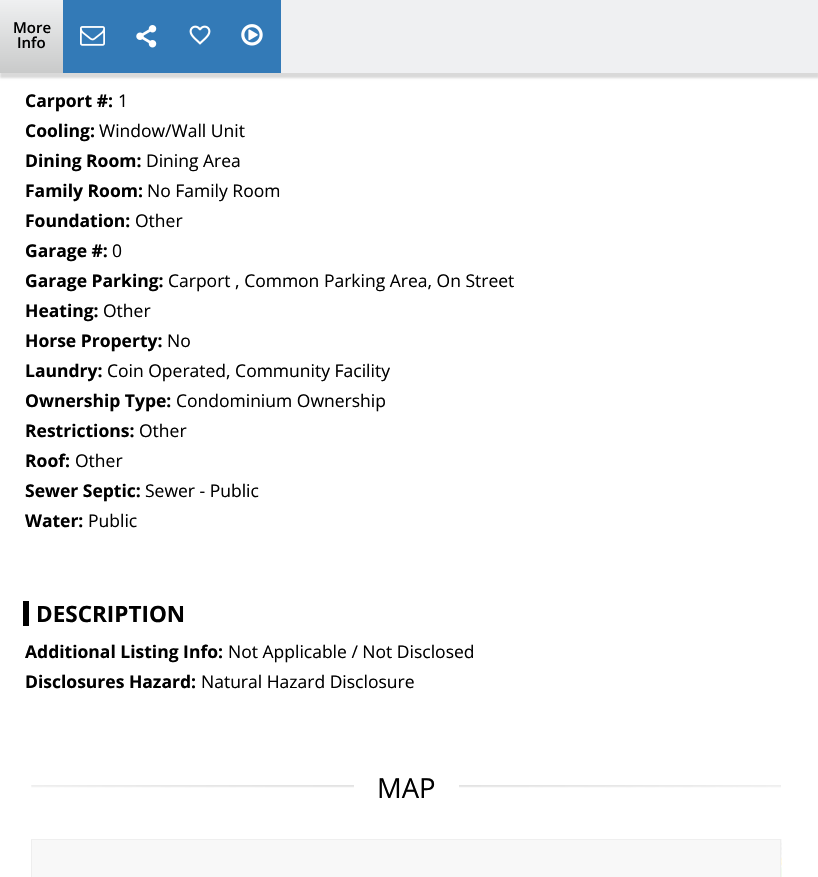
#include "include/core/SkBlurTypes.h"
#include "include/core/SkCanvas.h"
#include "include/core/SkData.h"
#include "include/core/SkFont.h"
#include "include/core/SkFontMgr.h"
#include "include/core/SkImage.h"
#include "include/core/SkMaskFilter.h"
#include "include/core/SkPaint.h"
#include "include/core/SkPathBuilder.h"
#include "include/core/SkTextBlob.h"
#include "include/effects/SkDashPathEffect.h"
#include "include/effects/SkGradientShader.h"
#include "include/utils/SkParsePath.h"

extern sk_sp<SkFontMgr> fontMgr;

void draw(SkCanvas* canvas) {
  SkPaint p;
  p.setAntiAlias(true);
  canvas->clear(SK_ColorWHITE);
  p.setColor(SkColorSetARGB(38, 0, 0, 0));
  p.setMaskFilter(SkMaskFilter::MakeBlur(kNormal_SkBlurStyle, 1));
  canvas->drawRect(SkRect::MakeLTRB(0, 5, 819, 78), p);
  p.setMaskFilter(nullptr);
  p.setColor(SkColorSetRGB(239, 240, 242));
  canvas->drawRect(SkRect::MakeLTRB(281, 0, 818, 73), p);
  {
    const SkColor colors[] = {SkColorSetRGB(239, 240, 241), SkColorSetRGB(201, 202, 202)};
    const float stops[] = {0, 1};
    const SkPoint ends[] = {{31, 0}, {31, 73}};
    p.setShader(SkGradientShader::MakeLinear(ends, colors, stops, 2, SkTileMode::kClamp));
    p.setAlpha(255);
  }
  canvas->drawRect(SkRect::MakeLTRB(0, 0, 63, 73), p);
  p.setShader(nullptr);
  p.setColor(SkColorSetRGB(51, 122, 183));
  canvas->drawRect(SkRect::MakeLTRB(63, 0, 281, 73), p);
  canvas->drawImageRect(SkImages::DeferredFromEncodedData(SkData::MakeFromFileName("images/1.png")), SkRect::MakeLTRB(80, 26, 105, 46), SkSamplingOptions());
  canvas->drawImageRect(SkImages::DeferredFromEncodedData(SkData::MakeFromFileName("images/2.png")), SkRect::MakeLTRB(136, 25, 157, 48), SkSamplingOptions());
  canvas->drawImageRect(SkImages::DeferredFromEncodedData(SkData::MakeFromFileName("images/3.png")), SkRect::MakeLTRB(189, 25, 211, 45), SkSamplingOptions());
  canvas->drawImageRect(SkImages::DeferredFromEncodedData(SkData::MakeFromFileName("images/4.png")), SkRect::MakeLTRB(241, 24, 263, 46), SkSamplingOptions());
  p.setColor(SK_ColorBLACK);
  canvas->drawRect(SkRect::MakeLTRB(23, 601, 29, 626), p);
  canvas->drawImageRect(SkImages::DeferredFromEncodedData(SkData::MakeFromFileName("images/5.png")), SkRect::MakeLTRB(31, 785, 781, 788), SkSamplingOptions());
  p.setColor(SK_ColorWHITE);
  canvas->drawRect(SkRect::MakeLTRB(354, 785, 459, 788), p);
  p.setColor(SkColorSetRGB(248, 248, 248));
  canvas->drawRect(SkRect::MakeLTRB(31, 839, 781, 877), p);
  p.setColor(SkColorSetRGB(239, 239, 239));
  canvas->drawPath(SkPathBuilder().moveTo(31, 839).lineTo(781, 839).lineTo(780, 840).lineTo(32, 840).close().detach(), p);
  p.setColor(SkColorSetARGB(77, 215, 215, 215));
  canvas->drawPath(SkPathBuilder().moveTo(781, 839).lineTo(781, 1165).lineTo(780, 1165).lineTo(780, 840).close().detach(), p);
  canvas->drawPath(SkPathBuilder().moveTo(31, 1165).lineTo(31, 839).lineTo(32, 840).lineTo(32, 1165).close().detach(), p);
  canvas->drawImageRect(SkImages::DeferredFromEncodedData(SkData::MakeFromFileName("images/6.png")), SkRect::MakeLTRB(781, 839, 782, 877), SkSamplingOptions());
  SkFont font1(fontMgr->matchFamilyStyle("Open Sans", SkFontStyle(600, SkFontStyle::kNormal_Width, SkFontStyle::kUpright_Slant)), 15);
  font1.setSubpixel(true);
  p.setColor(SK_ColorBLACK);
  canvas->drawString("More", 13, 33, font1, p);
  canvas->drawString("Info", 17, 48, font1, p);
  SkFont font2(fontMgr->matchFamilyStyle("Open Sans", SkFontStyle::Bold()), 17.5f);
  font2.setSubpixel(true);
  canvas->drawString("Carport #:", 25, 107, font2, p);
  SkFont font3(fontMgr->matchFamilyStyle("Open Sans", SkFontStyle::Normal()), 17.5f);
  font3.setSubpixel(true);
  canvas->drawString("1", 118, 107, font3, p);
  canvas->drawString("Cooling:", 25, 137, font2, p);
  canvas->drawString("Window/Wall Unit", 99, 137, font3, p);
  canvas->drawString("Dining Room:", 25, 167, font2, p);
  canvas->drawString("Dining Area", 146, 167, font3, p);
  canvas->drawString("Family Room:", 25, 197, font2, p);
  canvas->drawString("No Family Room", 147, 197, font3, p);
  canvas->drawString("Foundation:", 25, 227, font2, p);
  canvas->drawString("Other", 135, 227, font3, p);
  canvas->drawString("Garage #:", 25, 257, font2, p);
  canvas->drawString("0", 112, 257, font3, p);
  canvas->drawString("Garage Parking:", 25, 287, font2, p);
  canvas->drawString("Carport , Common Parking Area, On Street", 168, 287, font3, p);
  canvas->drawString("Heating:", 25, 317, font2, p);
  canvas->drawString("Other", 103, 317, font3, p);
  canvas->drawString("Horse Property:", 25, 347, font2, p);
  canvas->drawString("No", 167, 347, font3, p);
  canvas->drawString("Laundry:", 25, 377, font2, p);
  canvas->drawString("Coin Operated, Community Facility", 107, 377, font3, p);
  canvas->drawString("Ownership Type:", 25, 407, font2, p);
  canvas->drawString("Condominium Ownership", 176, 407, font3, p);
  canvas->drawString("Restrictions:", 25, 437, font2, p);
  canvas->drawString("Other", 139, 437, font3, p);
  canvas->drawString("Roof:", 25, 467, font2, p);
  canvas->drawString("Other", 75, 467, font3, p);
  canvas->drawString("Sewer Septic:", 25, 497, font2, p);
  canvas->drawString("Sewer - Public", 145, 497, font3, p);
  canvas->drawString("Water:", 25, 527, font2, p);
  canvas->drawString("Public", 88, 527, font3, p);
  SkFont font4(fontMgr->matchFamilyStyle("Open Sans", SkFontStyle::Bold()), 22.5f);
  font4.setSubpixel(true);
  canvas->drawString("DESCRIPTION", 36, 622, font4, p);
  canvas->drawString("Additional Listing Info:", 25, 658, font2, p);
  canvas->drawString("Not Applicable / Not Disclosed", 228, 658, font3, p);
  canvas->drawString("Disclosures Hazard:", 25, 688, font2, p);
  canvas->drawString("Natural Hazard Disclosure", 201, 688, font3, p);
  SkFont font5(fontMgr->matchFamilyStyle("Open Sans", SkFontStyle::Normal()), 27.5f);
  font5.setSubpixel(true);
  canvas->drawString("MAP", 377, 798, font5, p);
}
